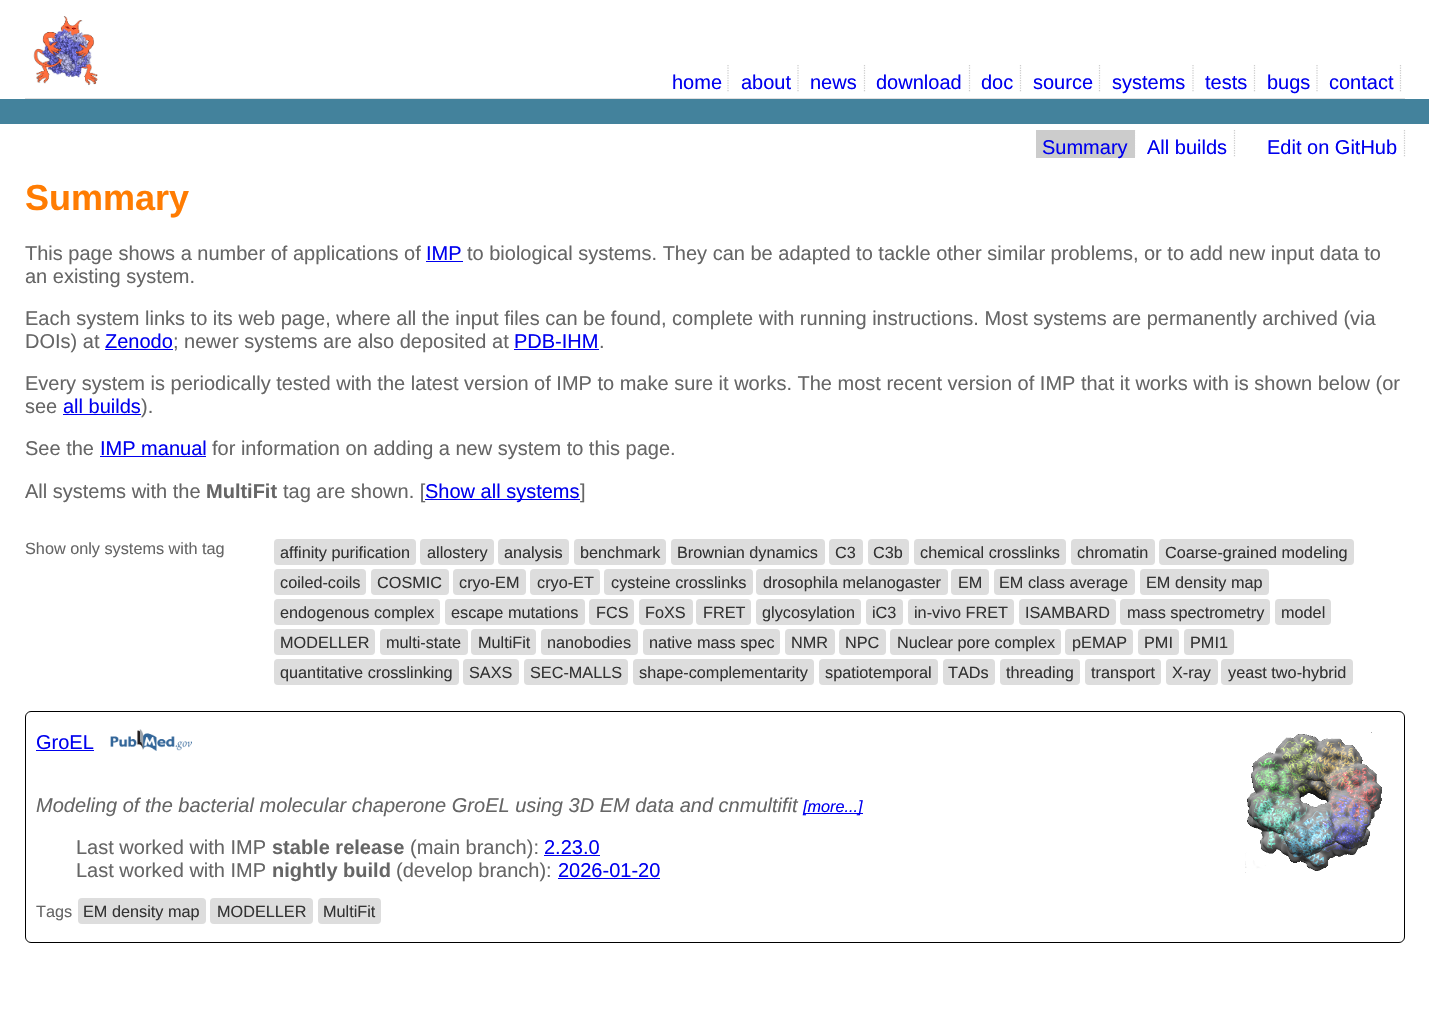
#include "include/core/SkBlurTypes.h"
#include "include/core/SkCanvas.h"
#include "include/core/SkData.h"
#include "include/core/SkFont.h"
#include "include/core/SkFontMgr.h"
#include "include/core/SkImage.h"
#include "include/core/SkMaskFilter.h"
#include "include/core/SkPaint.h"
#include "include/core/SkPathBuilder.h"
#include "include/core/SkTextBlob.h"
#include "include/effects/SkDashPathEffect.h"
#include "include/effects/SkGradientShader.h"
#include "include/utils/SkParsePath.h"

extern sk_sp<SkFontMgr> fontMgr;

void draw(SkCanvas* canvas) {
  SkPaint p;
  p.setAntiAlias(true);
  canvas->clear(SK_ColorWHITE);
  p.setColor(SkColorSetRGB(224, 223, 223));
  canvas->drawRect(SkRect::MakeLTRB(25, 98, 1405, 99), p);
  canvas->drawImageRect(SkImages::DeferredFromEncodedData(SkData::MakeFromFileName("images/1.png")), SkRect::MakeLTRB(33, 16, 98, 86), SkSamplingOptions());
  p.setStyle(SkPaint::kStroke_Style);
  p.setStrokeWidth(1.2f);
  p.setColor(SkColorSetRGB(204, 204, 204));
  p.setPathEffect(SkDashPathEffect::Make({{1.25f, 1.25f}}, 0));
  canvas->drawPath(SkPathBuilder().moveTo(728, 65).lineTo(728, 92.5f).detach(), p);
  p.setPathEffect(nullptr);
  p.setPathEffect(SkDashPathEffect::Make({{1.25f, 1.25f}}, 0));
  canvas->drawPath(SkPathBuilder().moveTo(798, 65).lineTo(798, 92.5f).detach(), p);
  p.setPathEffect(nullptr);
  p.setPathEffect(SkDashPathEffect::Make({{1.25f, 1.25f}}, 0));
  canvas->drawPath(SkPathBuilder().moveTo(864.5f, 65).lineTo(864.5f, 92.5f).detach(), p);
  p.setPathEffect(nullptr);
  p.setPathEffect(SkDashPathEffect::Make({{1.25f, 1.25f}}, 0));
  canvas->drawPath(SkPathBuilder().moveTo(969.5f, 65).lineTo(969.5f, 92.5f).detach(), p);
  p.setPathEffect(nullptr);
  p.setPathEffect(SkDashPathEffect::Make({{1.25f, 1.25f}}, 0));
  canvas->drawPath(SkPathBuilder().moveTo(1020.5f, 65).lineTo(1020.5f, 92.5f).detach(), p);
  p.setPathEffect(nullptr);
  p.setPathEffect(SkDashPathEffect::Make({{1.25f, 1.25f}}, 0));
  canvas->drawPath(SkPathBuilder().moveTo(1099.5f, 65).lineTo(1099.5f, 92.5f).detach(), p);
  p.setPathEffect(nullptr);
  p.setPathEffect(SkDashPathEffect::Make({{1.25f, 1.25f}}, 0));
  canvas->drawPath(SkPathBuilder().moveTo(1193, 65).lineTo(1193, 92.5f).detach(), p);
  p.setPathEffect(nullptr);
  p.setPathEffect(SkDashPathEffect::Make({{1.25f, 1.25f}}, 0));
  canvas->drawPath(SkPathBuilder().moveTo(1254.5f, 65).lineTo(1254.5f, 92.5f).detach(), p);
  p.setPathEffect(nullptr);
  p.setPathEffect(SkDashPathEffect::Make({{1.25f, 1.25f}}, 0));
  canvas->drawPath(SkPathBuilder().moveTo(1317, 65).lineTo(1317, 92.5f).detach(), p);
  p.setPathEffect(nullptr);
  p.setPathEffect(SkDashPathEffect::Make({{1.25f, 1.25f}}, 0));
  canvas->drawPath(SkPathBuilder().moveTo(1400.5f, 65).lineTo(1400.5f, 92.5f).detach(), p);
  p.setPathEffect(nullptr);
  p.setStyle(SkPaint::kFill_Style);
  p.setColor(SkColorSetRGB(67, 130, 156));
  canvas->drawRect(SkRect::MakeLTRB(0, 99, 1429, 124), p);
  p.setColor(SkColorSetRGB(204, 204, 204));
  canvas->drawRect(SkRect::MakeLTRB(1036, 130, 1135, 158), p);
  p.setStyle(SkPaint::kStroke_Style);
  p.setPathEffect(SkDashPathEffect::Make({{1.25f, 1.25f}}, 0));
  canvas->drawPath(SkPathBuilder().moveTo(1134.5f, 130).lineTo(1134.5f, 157.5f).detach(), p);
  p.setPathEffect(nullptr);
  p.setPathEffect(SkDashPathEffect::Make({{1.25f, 1.25f}}, 0));
  canvas->drawPath(SkPathBuilder().moveTo(1234.5f, 130).lineTo(1234.5f, 157.5f).detach(), p);
  p.setPathEffect(nullptr);
  p.setPathEffect(SkDashPathEffect::Make({{1.25f, 1.25f}}, 0));
  canvas->drawPath(SkPathBuilder().moveTo(1404.5f, 130).lineTo(1404.5f, 157.5f).detach(), p);
  p.setPathEffect(nullptr);
  p.setStyle(SkPaint::kFill_Style);
  p.setColor(SkColorSetRGB(0, 0, 238));
  canvas->drawRect(SkRect::MakeLTRB(426, 261, 463, 262), p);
  canvas->drawRect(SkRect::MakeLTRB(105, 349, 173, 350), p);
  canvas->drawRect(SkRect::MakeLTRB(514, 349, 599, 350), p);
  canvas->drawRect(SkRect::MakeLTRB(63, 414, 141, 415), p);
  canvas->drawRect(SkRect::MakeLTRB(100, 456, 206, 457), p);
  canvas->drawRect(SkRect::MakeLTRB(425, 499, 580, 500), p);
  p.setColor(SkColorSetRGB(221, 221, 221));
  canvas->drawRoundRect(SkRect::MakeLTRB(274, 539, 416, 565), 4, 4, p);
  canvas->drawRoundRect(SkRect::MakeLTRB(420, 539, 494, 565), 4, 4, p);
  canvas->drawRoundRect(SkRect::MakeLTRB(498, 539, 569, 565), 4, 4, p);
  canvas->drawRoundRect(SkRect::MakeLTRB(574, 539, 666, 565), 4, 4, p);
  canvas->drawRoundRect(SkRect::MakeLTRB(671, 539, 825, 565), 4, 4, p);
  canvas->drawRoundRect(SkRect::MakeLTRB(829, 539, 863, 565), 4, 4, p);
  canvas->drawRoundRect(SkRect::MakeLTRB(868, 539, 909, 565), 4, 4, p);
  canvas->drawRoundRect(SkRect::MakeLTRB(914, 539, 1066, 565), 4, 4, p);
  canvas->drawRoundRect(SkRect::MakeLTRB(1071, 539, 1155, 565), 4, 4, p);
  canvas->drawRoundRect(SkRect::MakeLTRB(1159, 539, 1354, 565), 4, 4, p);
  canvas->drawRoundRect(SkRect::MakeLTRB(274, 569, 366, 595), 4, 4, p);
  canvas->drawRoundRect(SkRect::MakeLTRB(371, 569, 449, 595), 4, 4, p);
  canvas->drawRoundRect(SkRect::MakeLTRB(453, 569, 526, 595), 4, 4, p);
  canvas->drawRoundRect(SkRect::MakeLTRB(530, 569, 600, 595), 4, 4, p);
  canvas->drawRoundRect(SkRect::MakeLTRB(604, 569, 753, 595), 4, 4, p);
  canvas->drawRoundRect(SkRect::MakeLTRB(756, 569, 948, 595), 4, 4, p);
  canvas->drawRoundRect(SkRect::MakeLTRB(951, 569, 989, 595), 4, 4, p);
  canvas->drawRoundRect(SkRect::MakeLTRB(994, 569, 1135, 595), 4, 4, p);
  canvas->drawRoundRect(SkRect::MakeLTRB(1140, 569, 1269, 595), 4, 4, p);
  canvas->drawRoundRect(SkRect::MakeLTRB(274, 599, 440, 625), 4, 4, p);
  canvas->drawRoundRect(SkRect::MakeLTRB(445, 599, 585, 625), 4, 4, p);
  canvas->drawRoundRect(SkRect::MakeLTRB(589, 599, 634, 625), 4, 4, p);
  canvas->drawRoundRect(SkRect::MakeLTRB(639, 599, 693, 625), 4, 4, p);
  canvas->drawRoundRect(SkRect::MakeLTRB(696, 599, 751, 625), 4, 4, p);
  canvas->drawRoundRect(SkRect::MakeLTRB(756, 599, 861, 625), 4, 4, p);
  canvas->drawRoundRect(SkRect::MakeLTRB(866, 599, 903, 625), 4, 4, p);
  canvas->drawRoundRect(SkRect::MakeLTRB(908, 599, 1014, 625), 4, 4, p);
  canvas->drawRoundRect(SkRect::MakeLTRB(1019, 599, 1116, 625), 4, 4, p);
  canvas->drawRoundRect(SkRect::MakeLTRB(1120, 599, 1270, 625), 4, 4, p);
  canvas->drawRoundRect(SkRect::MakeLTRB(1275, 599, 1331, 625), 4, 4, p);
  canvas->drawRoundRect(SkRect::MakeLTRB(274, 629, 375, 655), 4, 4, p);
  canvas->drawRoundRect(SkRect::MakeLTRB(380, 629, 468, 655), 4, 4, p);
  canvas->drawRoundRect(SkRect::MakeLTRB(471, 629, 536, 655), 4, 4, p);
  canvas->drawRoundRect(SkRect::MakeLTRB(541, 629, 638, 655), 4, 4, p);
  canvas->drawRoundRect(SkRect::MakeLTRB(643, 629, 780, 655), 4, 4, p);
  canvas->drawRoundRect(SkRect::MakeLTRB(785, 629, 835, 655), 4, 4, p);
  canvas->drawRoundRect(SkRect::MakeLTRB(839, 629, 886, 655), 4, 4, p);
  canvas->drawRoundRect(SkRect::MakeLTRB(890, 629, 1061, 655), 4, 4, p);
  canvas->drawRoundRect(SkRect::MakeLTRB(1065, 629, 1133, 655), 4, 4, p);
  canvas->drawRoundRect(SkRect::MakeLTRB(1138, 629, 1179, 655), 4, 4, p);
  canvas->drawRoundRect(SkRect::MakeLTRB(1184, 629, 1234, 655), 4, 4, p);
  canvas->drawRoundRect(SkRect::MakeLTRB(274, 659, 459, 685), 4, 4, p);
  canvas->drawRoundRect(SkRect::MakeLTRB(463, 659, 519, 685), 4, 4, p);
  canvas->drawRoundRect(SkRect::MakeLTRB(524, 659, 628, 685), 4, 4, p);
  canvas->drawRoundRect(SkRect::MakeLTRB(633, 659, 814, 685), 4, 4, p);
  canvas->drawRoundRect(SkRect::MakeLTRB(819, 659, 938, 685), 4, 4, p);
  canvas->drawRoundRect(SkRect::MakeLTRB(943, 659, 995, 685), 4, 4, p);
  canvas->drawRoundRect(SkRect::MakeLTRB(1000, 659, 1080, 685), 4, 4, p);
  canvas->drawRoundRect(SkRect::MakeLTRB(1085, 659, 1161, 685), 4, 4, p);
  canvas->drawRoundRect(SkRect::MakeLTRB(1166, 659, 1218, 685), 4, 4, p);
  canvas->drawRoundRect(SkRect::MakeLTRB(1221, 659, 1353, 685), 4, 4, p);
  p.setStyle(SkPaint::kStroke_Style);
  p.setStrokeWidth(1);
  p.setColor(SK_ColorBLACK);
  canvas->drawRoundRect(SkRect::MakeLTRB(25.5f, 711.5f, 1404.5f, 942.5f), 5.5f, 5.5f, p);
  p.setStyle(SkPaint::kFill_Style);
  p.setColor(SkColorSetRGB(0, 0, 238));
  canvas->drawRect(SkRect::MakeLTRB(36, 750, 94, 751), p);
  canvas->drawImageRect(SkImages::DeferredFromEncodedData(SkData::MakeFromFileName("images/2.png")), SkRect::MakeLTRB(110, 729, 192, 751), SkSamplingOptions());
  canvas->drawRect(SkRect::MakeLTRB(804, 813, 863, 814), p);
  canvas->drawRect(SkRect::MakeLTRB(544, 855, 600, 856), p);
  canvas->drawRect(SkRect::MakeLTRB(558, 878, 660, 879), p);
  p.setColor(SkColorSetRGB(221, 221, 221));
  canvas->drawRoundRect(SkRect::MakeLTRB(78, 898, 206, 924), 4, 4, p);
  canvas->drawRoundRect(SkRect::MakeLTRB(210, 898, 313, 924), 4, 4, p);
  canvas->drawRoundRect(SkRect::MakeLTRB(318, 898, 381, 924), 4, 4, p);
  canvas->drawImageRect(SkImages::DeferredFromEncodedData(SkData::MakeFromFileName("images/3.png")), SkRect::MakeLTRB(1245, 732, 1382, 873), SkSamplingOptions());
  SkFont font1(fontMgr->matchFamilyStyle("Liberation Sans", SkFontStyle::Normal()), 20);
  font1.setSubpixel(true);
  p.setColor(SkColorSetRGB(0, 0, 238));
  canvas->drawString("home", 672, 89, font1, p);
  canvas->drawString("about", 741, 89, font1, p);
  canvas->drawString("news", 810, 89, font1, p);
  canvas->drawString("download", 876, 89, font1, p);
  canvas->drawString("doc", 981, 89, font1, p);
  canvas->drawString("source", 1033, 89, font1, p);
  canvas->drawString("systems", 1112, 89, font1, p);
  canvas->drawString("tests", 1205, 89, font1, p);
  canvas->drawString("bugs", 1267, 89, font1, p);
  canvas->drawString("contact", 1329, 89, font1, p);
  canvas->drawString("Summary", 1042, 154, font1, p);
  canvas->drawString("All builds", 1147, 154, font1, p);
  canvas->drawString("Edit on GitHub", 1267, 154, font1, p);
  SkFont font2(fontMgr->matchFamilyStyle("Liberation Sans", SkFontStyle::Bold()), 36);
  font2.setSubpixel(true);
  p.setColor(SkColorSetRGB(255, 124, 2));
  canvas->drawString("Summary", 25, 210, font2, p);
  p.setColor(SkColorSetRGB(102, 102, 102));
  canvas->drawString("This page shows a number of applications of", 25, 260, font1, p);
  p.setColor(SkColorSetRGB(0, 0, 238));
  canvas->drawString("IMP", 426, 260, font1, p);
  p.setColor(SkColorSetRGB(102, 102, 102));
  canvas->drawString("to biological systems. They can be adapted to tackle other similar problems, or to add new input data to", 467, 260, font1, p);
  canvas->drawString("an existing system.", 25, 283, font1, p);
  canvas->drawString("Each system links to its web page, where all the input files can be found, complete with running instructions. Most systems are permanently archived (via", 25, 325, font1, p);
  canvas->drawString("DOIs) at", 25, 348, font1, p);
  p.setColor(SkColorSetRGB(0, 0, 238));
  canvas->drawString("Zenodo", 105, 348, font1, p);
  p.setColor(SkColorSetRGB(102, 102, 102));
  canvas->drawString("; newer systems are also deposited at", 173, 348, font1, p);
  p.setColor(SkColorSetRGB(0, 0, 238));
  canvas->drawString("PDB-IHM", 514, 348, font1, p);
  p.setColor(SkColorSetRGB(102, 102, 102));
  canvas->drawString(".", 599, 348, font1, p);
  canvas->drawString("Every system is periodically tested with the latest version of IMP to make sure it works. The most recent version of IMP that it works with is shown below (or", 25, 390, font1, p);
  canvas->drawString("see", 25, 413, font1, p);
  p.setColor(SkColorSetRGB(0, 0, 238));
  canvas->drawString("all builds", 63, 413, font1, p);
  p.setColor(SkColorSetRGB(102, 102, 102));
  canvas->drawString(").", 141, 413, font1, p);
  canvas->drawString("See the", 25, 455, font1, p);
  p.setColor(SkColorSetRGB(0, 0, 238));
  canvas->drawString("IMP manual", 100, 455, font1, p);
  p.setColor(SkColorSetRGB(102, 102, 102));
  canvas->drawString("for information on adding a new system to this page.", 212, 455, font1, p);
  canvas->drawString("All systems with the", 25, 498, font1, p);
  SkFont font3(fontMgr->matchFamilyStyle("Liberation Sans", SkFontStyle::Bold()), 20);
  font3.setSubpixel(true);
  canvas->drawString("MultiFit", 206, 498, font3, p);
  canvas->drawString("tag are shown. [", 283, 498, font1, p);
  p.setColor(SkColorSetRGB(0, 0, 238));
  canvas->drawString("Show all systems", 425, 498, font1, p);
  p.setColor(SkColorSetRGB(102, 102, 102));
  canvas->drawString("]", 580, 498, font1, p);
  SkFont font4(fontMgr->matchFamilyStyle("Liberation Sans", SkFontStyle::Normal()), 16.25f);
  font4.setSubpixel(true);
  canvas->drawString("Show only systems with tag", 25, 554, font4, p);
  p.setColor(SkColorSetRGB(51, 51, 51));
  canvas->drawString("affinity purification", 280, 558, font4, p);
  canvas->drawString("allostery", 427, 558, font4, p);
  canvas->drawString("analysis", 504, 558, font4, p);
  canvas->drawString("benchmark", 580, 558, font4, p);
  canvas->drawString("Brownian dynamics", 677, 558, font4, p);
  canvas->drawString("C3", 835, 558, font4, p);
  canvas->drawString("C3b", 873, 558, font4, p);
  canvas->drawString("chemical crosslinks", 920, 558, font4, p);
  canvas->drawString("chromatin", 1077, 558, font4, p);
  canvas->drawString("Coarse-grained modeling", 1165, 558, font4, p);
  canvas->drawString("coiled-coils", 280, 588, font4, p);
  canvas->drawString("COSMIC", 377, 588, font4, p);
  canvas->drawString("cryo-EM", 459, 588, font4, p);
  canvas->drawString("cryo-ET", 537, 588, font4, p);
  canvas->drawString("cysteine crosslinks", 611, 588, font4, p);
  canvas->drawString("drosophila melanogaster", 763, 588, font4, p);
  canvas->drawString("EM", 958, 588, font4, p);
  canvas->drawString("EM class average", 999, 588, font4, p);
  canvas->drawString("EM density map", 1146, 588, font4, p);
  canvas->drawString("endogenous complex", 280, 618, font4, p);
  canvas->drawString("escape mutations", 451, 618, font4, p);
  canvas->drawString("FCS", 596, 618, font4, p);
  canvas->drawString("FoXS", 645, 618, font4, p);
  canvas->drawString("FRET", 703, 618, font4, p);
  canvas->drawString("glycosylation", 762, 618, font4, p);
  canvas->drawString("iC3", 872, 618, font4, p);
  canvas->drawString("in-vivo FRET", 914, 618, font4, p);
  canvas->drawString("ISAMBARD", 1025, 618, font4, p);
  canvas->drawString("mass spectrometry", 1127, 618, font4, p);
  canvas->drawString("model", 1281, 618, font4, p);
  canvas->drawString("MODELLER", 280, 648, font4, p);
  canvas->drawString("multi-state", 386, 648, font4, p);
  canvas->drawString("MultiFit", 478, 648, font4, p);
  canvas->drawString("nanobodies", 547, 648, font4, p);
  canvas->drawString("native mass spec", 649, 648, font4, p);
  canvas->drawString("NMR", 791, 648, font4, p);
  canvas->drawString("NPC", 845, 648, font4, p);
  canvas->drawString("Nuclear pore complex", 897, 648, font4, p);
  canvas->drawString("pEMAP", 1072, 648, font4, p);
  canvas->drawString("PMI", 1144, 648, font4, p);
  canvas->drawString("PMI1", 1190, 648, font4, p);
  canvas->drawString("quantitative crosslinking", 280, 678, font4, p);
  canvas->drawString("SAXS", 469, 678, font4, p);
  canvas->drawString("SEC-MALLS", 530, 678, font4, p);
  canvas->drawString("shape-complementarity", 639, 678, font4, p);
  canvas->drawString("spatiotemporal", 825, 678, font4, p);
  canvas->drawString("TADs", 948, 678, font4, p);
  canvas->drawString("threading", 1006, 678, font4, p);
  canvas->drawString("transport", 1091, 678, font4, p);
  canvas->drawString("X-ray", 1172, 678, font4, p);
  canvas->drawString("yeast two-hybrid", 1228, 678, font4, p);
  p.setColor(SkColorSetRGB(0, 0, 238));
  canvas->drawString("GroEL", 36, 749, font1, p);
  SkFont font5(fontMgr->matchFamilyStyle("Liberation Sans", SkFontStyle::Italic()), 20);
  font5.setSubpixel(true);
  p.setColor(SkColorSetRGB(102, 102, 102));
  canvas->drawString("Modeling of the bacterial molecular chaperone GroEL using 3D EM data and cnmultifit", 36, 812, font5, p);
  SkFont font6(fontMgr->matchFamilyStyle("Liberation Sans", SkFontStyle::Italic()), 16.25f);
  font6.setSubpixel(true);
  p.setColor(SkColorSetRGB(0, 0, 238));
  canvas->drawString("[more...]", 803, 812, font6, p);
  p.setColor(SkColorSetRGB(102, 102, 102));
  canvas->drawString("Last worked with IMP", 76, 854, font1, p);
  canvas->drawString("stable release", 272, 854, font3, p);
  canvas->drawString("(main branch):", 410, 854, font1, p);
  p.setColor(SkColorSetRGB(0, 0, 238));
  canvas->drawString("2.23.0", 544, 854, font1, p);
  p.setColor(SkColorSetRGB(102, 102, 102));
  canvas->drawString("Last worked with IMP", 76, 877, font1, p);
  canvas->drawString("nightly build", 272, 877, font3, p);
  canvas->drawString("(develop branch):", 396, 877, font1, p);
  p.setColor(SkColorSetRGB(0, 0, 238));
  canvas->drawString("2026-01-20", 558, 877, font1, p);
  p.setColor(SkColorSetRGB(102, 102, 102));
  canvas->drawString("Tags", 36, 917, font4, p);
  p.setColor(SkColorSetRGB(51, 51, 51));
  canvas->drawString("EM density map", 83, 917, font4, p);
  canvas->drawString("MODELLER", 217, 917, font4, p);
  canvas->drawString("MultiFit", 323, 917, font4, p);
}
